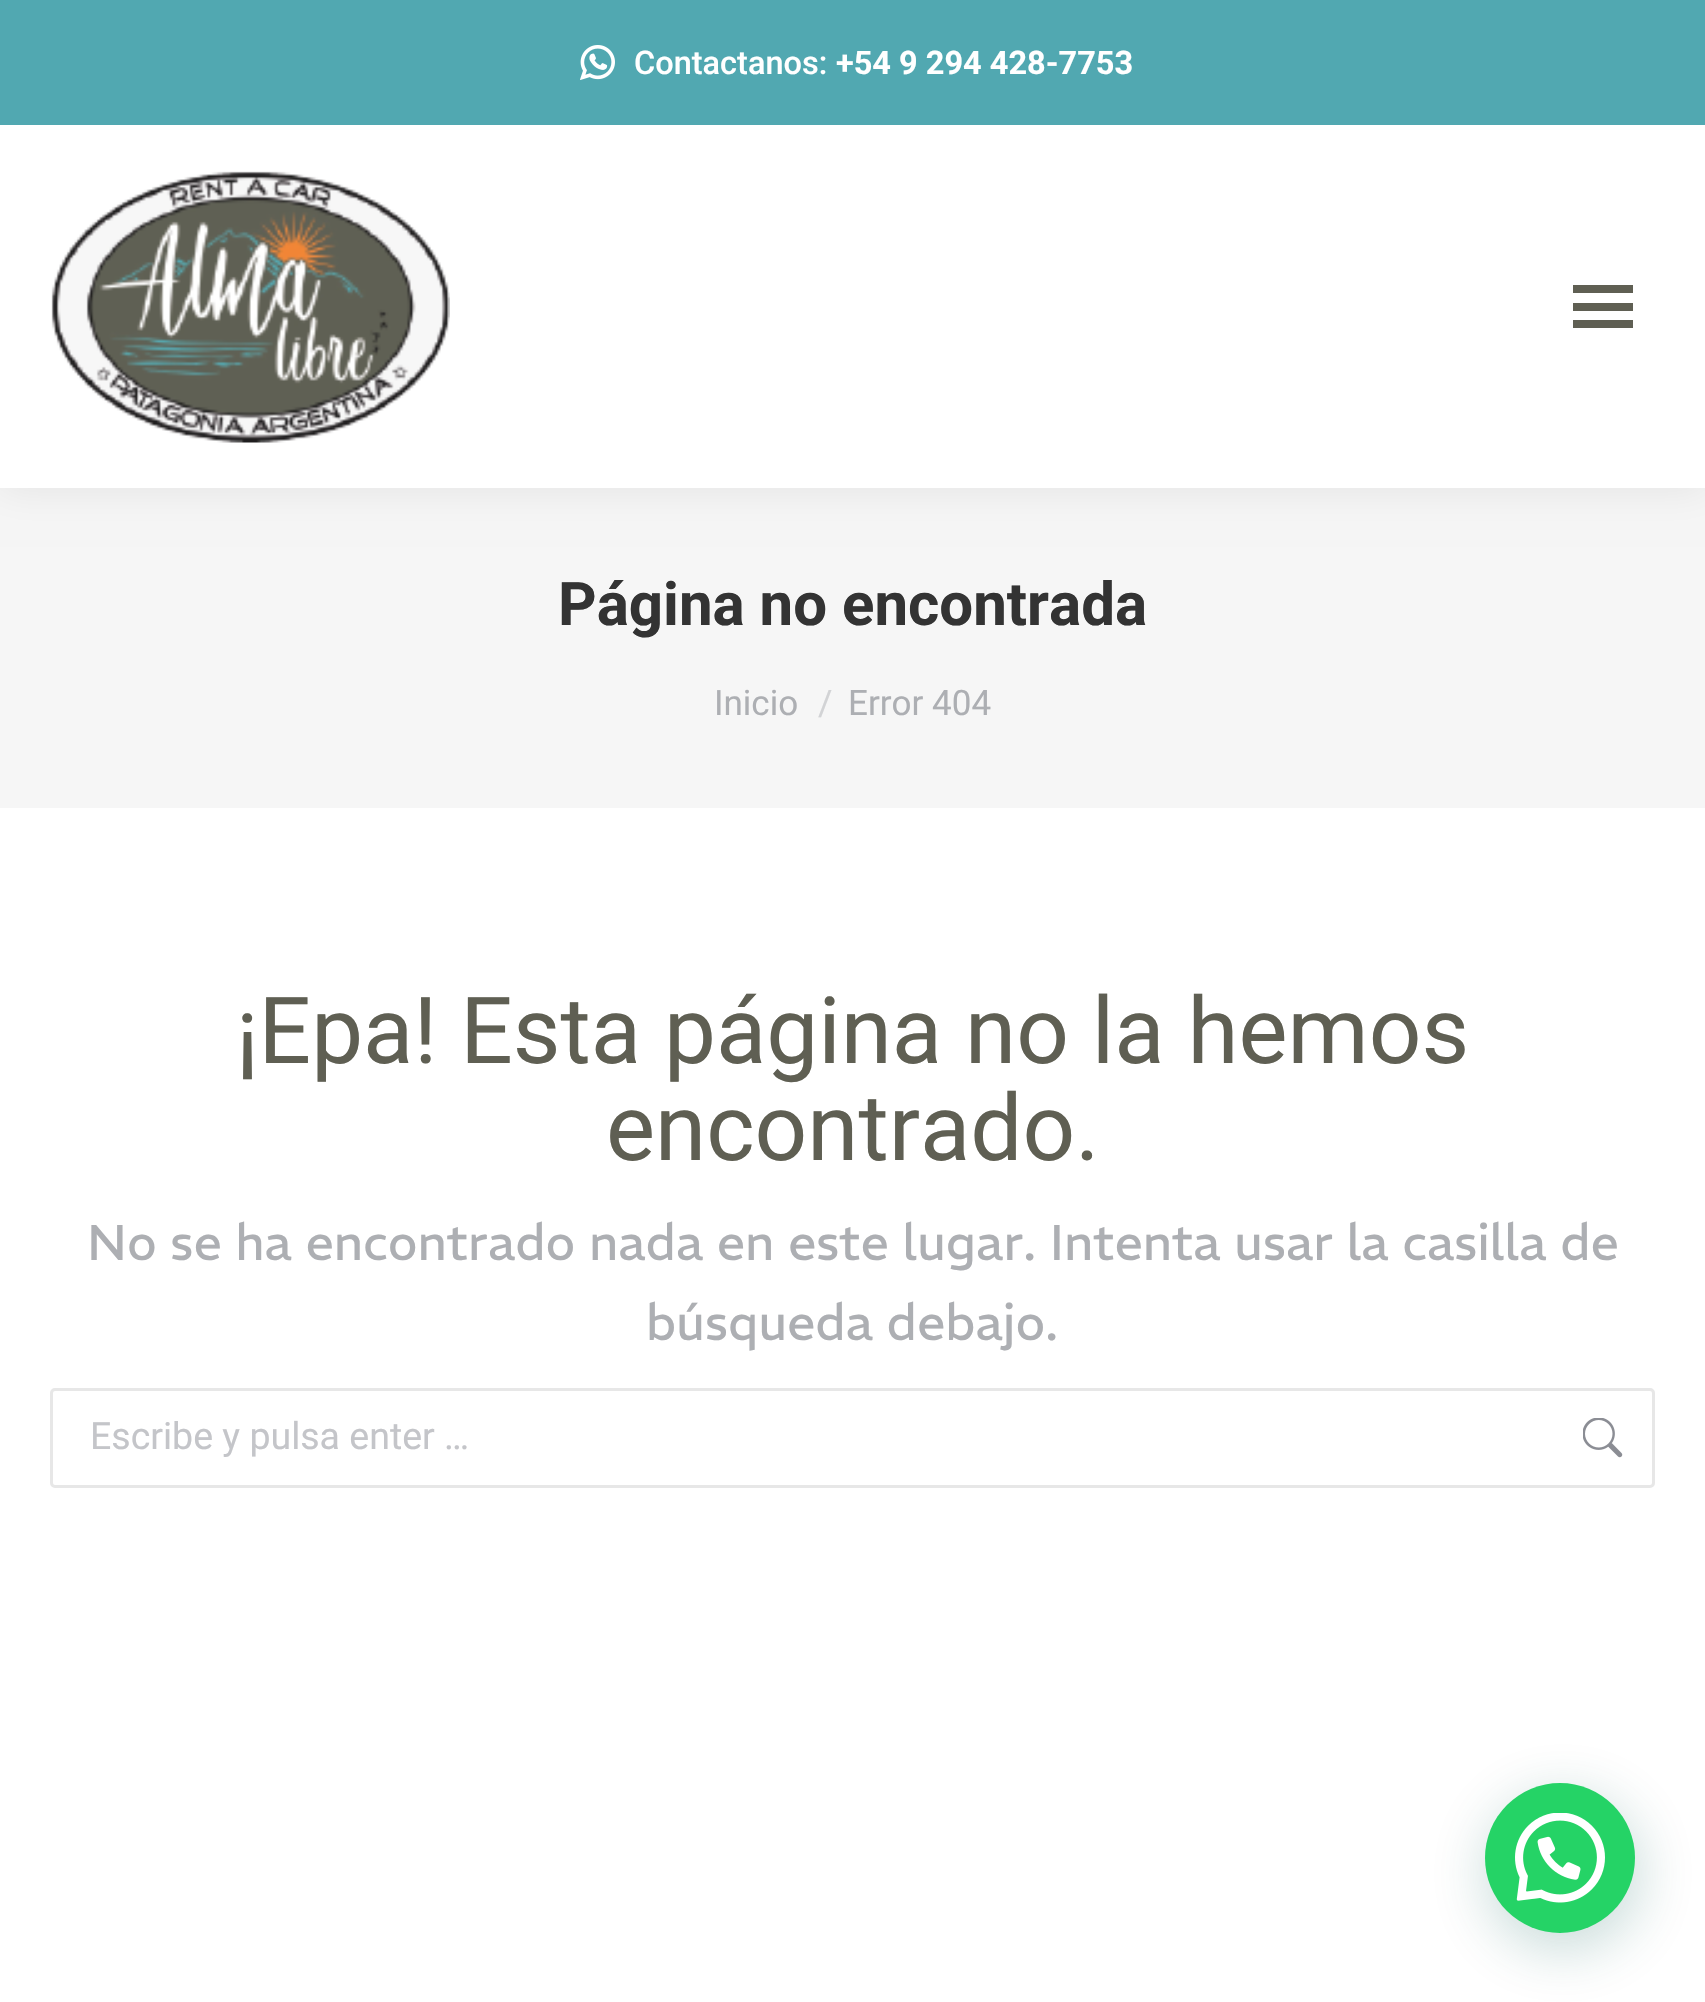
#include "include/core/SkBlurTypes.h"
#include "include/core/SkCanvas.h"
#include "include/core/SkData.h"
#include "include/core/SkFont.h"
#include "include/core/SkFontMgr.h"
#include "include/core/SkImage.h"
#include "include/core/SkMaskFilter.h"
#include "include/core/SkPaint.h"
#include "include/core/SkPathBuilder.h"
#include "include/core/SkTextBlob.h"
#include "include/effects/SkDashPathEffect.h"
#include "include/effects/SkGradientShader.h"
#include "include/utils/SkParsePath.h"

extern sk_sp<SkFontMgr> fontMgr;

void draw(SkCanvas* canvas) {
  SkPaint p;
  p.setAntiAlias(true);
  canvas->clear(SK_ColorWHITE);
  p.setColor(SkColorSetRGB(246, 246, 246));
  canvas->drawRect(SkRect::MakeLTRB(0, 488, 1705, 808), p);
  p.setColor(SkColorSetARGB(18, 0, 0, 0));
  p.setMaskFilter(SkMaskFilter::MakeBlur(kNormal_SkBlurStyle, 19));
  canvas->drawRect(SkRect::MakeLTRB(-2, -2, 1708, 490), p);
  p.setMaskFilter(nullptr);
  p.setColor(SK_ColorWHITE);
  canvas->drawRect(SkRect::MakeLTRB(0, 125, 1705, 488), p);
  p.setColor(SkColorSetRGB(81, 168, 177));
  canvas->drawRect(SkRect::MakeLTRB(0, 0, 1705, 125), p);
  canvas->drawImageRect(SkImages::DeferredFromEncodedData(SkData::MakeFromFileName("images/1.png")), SkRect::MakeLTRB(580, 45, 615, 80), SkSamplingOptions());
  canvas->drawImageRect(SkImages::DeferredFromEncodedData(SkData::MakeFromFileName("images/2.png")), SkRect::MakeLTRB(51, 171, 450, 443), SkSamplingOptions());
  p.setColor(SkColorSetRGB(95, 95, 83));
  canvas->drawRect(SkRect::MakeLTRB(1573, 285, 1633, 293), p);
  canvas->drawRect(SkRect::MakeLTRB(1573, 303, 1633, 311), p);
  canvas->drawRect(SkRect::MakeLTRB(1573, 320, 1633, 328), p);
  p.setStyle(SkPaint::kStroke_Style);
  p.setStrokeWidth(3);
  p.setColor(SkColorSetRGB(231, 231, 231));
  canvas->drawRoundRect(SkRect::MakeLTRB(51.5f, 1389.5f, 1653.5f, 1486.5f), 3.5f, 3.5f, p);
  canvas->drawImageRect(SkImages::DeferredFromEncodedData(SkData::MakeFromFileName("images/3.png")), SkRect::MakeLTRB(1583, 1418, 1623, 1458), SkSamplingOptions());
  p.setStyle(SkPaint::kFill_Style);
  p.setColor(SkColorSetARGB(61, 7, 94, 84));
  p.setMaskFilter(SkMaskFilter::MakeBlur(kNormal_SkBlurStyle, 30));
  canvas->drawRoundRect(SkRect::MakeLTRB(1488, 1798, 1638, 1948), 75, 75, p);
  p.setMaskFilter(nullptr);
  p.setColor(SkColorSetRGB(37, 211, 102));
  canvas->drawCircle(1560, 1858, 75, p);
  canvas->drawImageRect(SkImages::DeferredFromEncodedData(SkData::MakeFromFileName("images/4.png")), SkRect::MakeLTRB(1515, 1813, 1605, 1903), SkSamplingOptions());
  SkFont font1(fontMgr->matchFamilyStyle("Roboto", SkFontStyle(500, SkFontStyle::kNormal_Width, SkFontStyle::kUpright_Slant)), 32.5f);
  font1.setSubpixel(true);
  p.setColor(SK_ColorWHITE);
  canvas->drawString("Contactanos:", 634, 74, font1, p);
  SkFont font2(fontMgr->matchFamilyStyle("Roboto", SkFontStyle::Bold()), 32.5f);
  font2.setSubpixel(true);
  canvas->drawString("+54 9 294 428-7753", 836, 74, font2, p);
  SkFont font3(fontMgr->matchFamilyStyle("Roboto", SkFontStyle::Bold()), 60);
  font3.setSubpixel(true);
  p.setColor(SkColorSetRGB(51, 51, 51));
  canvas->drawString("Página no encontrada", 558, 625, font3, p);
  SkFont font4(fontMgr->matchFamilyStyle("Roboto", SkFontStyle::Normal()), 35);
  font4.setSubpixel(true);
  p.setColor(SkColorSetRGB(173, 175, 179));
  canvas->drawString("Inicio", 714, 715, font4, p);
  p.setColor(SkColorSetRGB(210, 211, 213));
  canvas->drawString("/", 818, 715, font4, p);
  p.setColor(SkColorSetRGB(173, 175, 179));
  canvas->drawString("Error 404", 848, 715, font4, p);
  SkFont font5(fontMgr->matchFamilyStyle("Roboto", SkFontStyle::Normal()), 92.5f);
  font5.setSubpixel(true);
  p.setColor(SkColorSetRGB(95, 95, 83));
  canvas->drawString("¡Epa! Esta página no la hemos", 236, 1063, font5, p);
  canvas->drawString("encontrado.", 606, 1160, font5, p);
  SkFont font6(fontMgr->matchFamilyStyle("REM", SkFontStyle::Normal()), 50);
  font6.setSubpixel(true);
  p.setColor(SkColorSetRGB(173, 175, 179));
  canvas->drawString("No se ha encontrado nada en este lugar. Intenta usar la casilla de", 87, 1260, font6, p);
  canvas->drawString("búsqueda debajo.", 646, 1340, font6, p);
  SkFont font7(fontMgr->matchFamilyStyle("Roboto", SkFontStyle::Normal()), 37.5f);
  font7.setSubpixel(true);
  p.setColor(SkColorSetRGB(196, 197, 201));
  canvas->drawString("Escribe y pulsa enter …", 90, 1449, font7, p);
}
